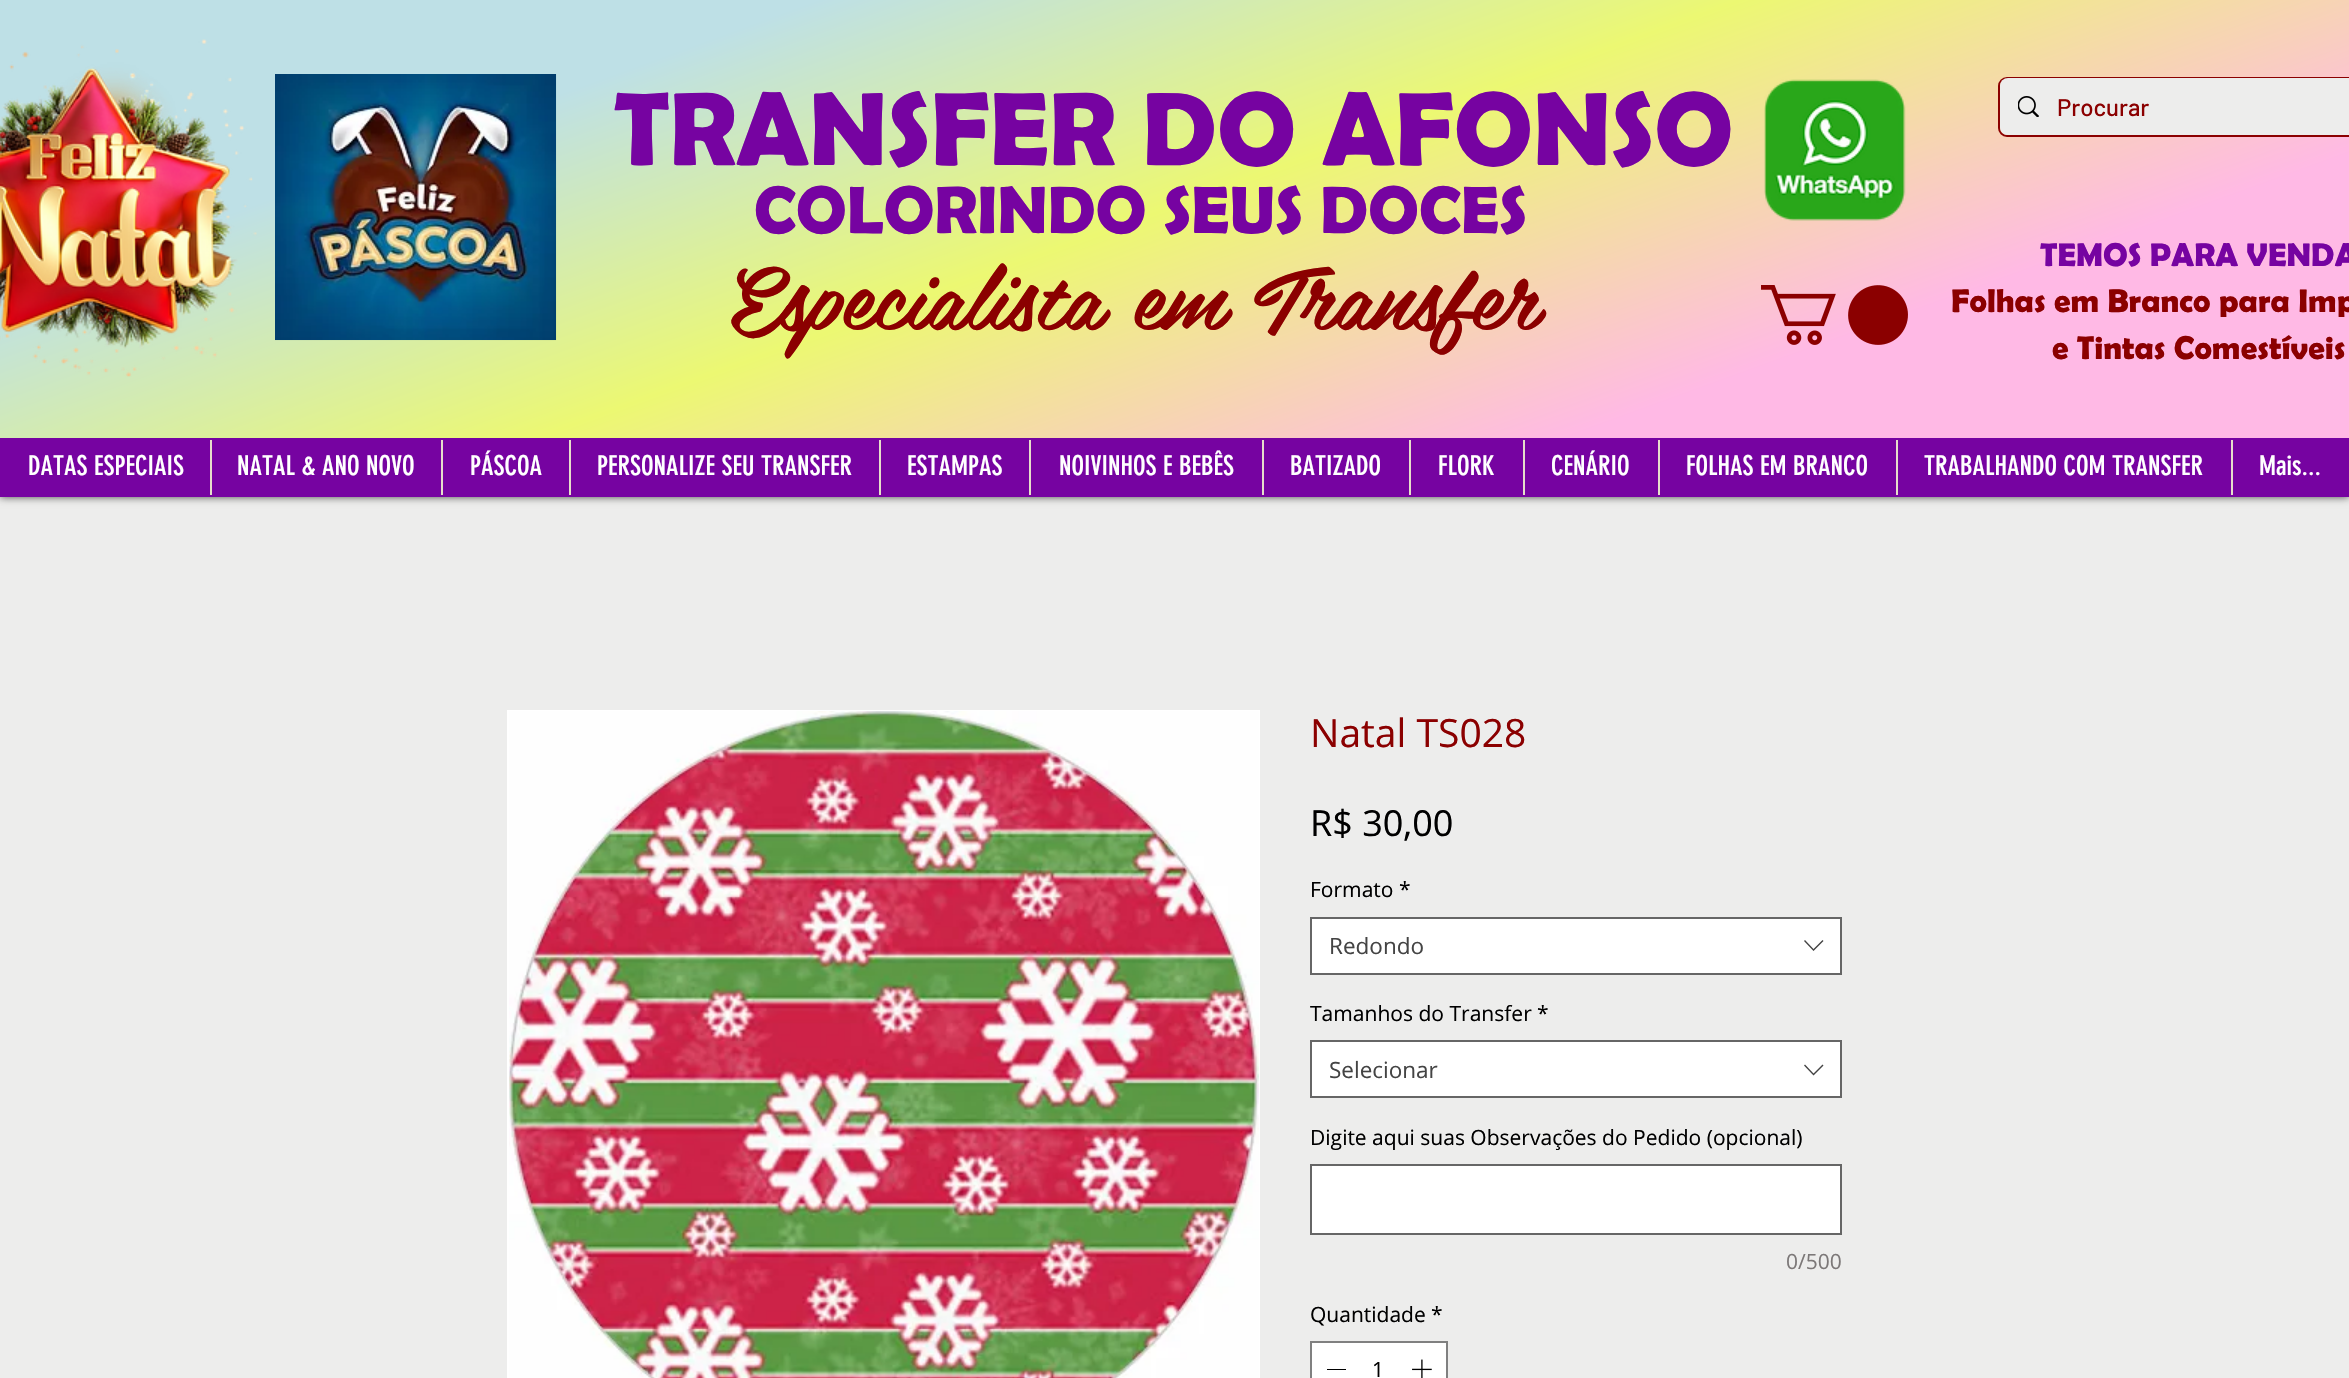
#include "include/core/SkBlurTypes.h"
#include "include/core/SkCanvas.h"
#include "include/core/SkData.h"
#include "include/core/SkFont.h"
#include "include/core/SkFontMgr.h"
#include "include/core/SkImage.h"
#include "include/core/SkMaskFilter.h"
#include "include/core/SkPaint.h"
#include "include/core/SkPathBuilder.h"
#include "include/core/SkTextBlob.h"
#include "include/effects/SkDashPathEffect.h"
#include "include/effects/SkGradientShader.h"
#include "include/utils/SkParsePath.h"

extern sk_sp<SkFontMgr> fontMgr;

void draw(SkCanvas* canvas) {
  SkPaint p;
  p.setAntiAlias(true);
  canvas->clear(SkColorSetRGB(237, 237, 236));
  p.setColor(SkColorSetARGB(179, 0, 0, 0));
  p.setMaskFilter(SkMaskFilter::MakeBlur(kNormal_SkBlurStyle, 4));
  canvas->drawRect(SkRect::MakeLTRB(0, 0, 2349, 497), p);
  p.setMaskFilter(nullptr);
  {
    const SkColor colors[] = {SkColorSetRGB(255, 185, 229), SkColorSetRGB(236, 248, 114), SkColorSetRGB(190, 224, 230)};
    const float stops[] = {0.22f, 0.51f, 0.77f};
    const SkPoint ends[] = {{1382, 790}, {967, -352}};
    p.setShader(SkGradientShader::MakeLinear(ends, colors, stops, 3, SkTileMode::kClamp));
    p.setAlpha(255);
  }
  canvas->drawRect(SkRect::MakeLTRB(0, 0, 2349, 438), p);
  canvas->drawImageRect(SkImages::DeferredFromEncodedData(SkData::MakeFromFileName("images/1.png")), SkRect::MakeLTRB(0, 39, 257, 377), SkSamplingOptions());
  canvas->drawImageRect(SkImages::DeferredFromEncodedData(SkData::MakeFromFileName("images/2.png")), SkRect::MakeLTRB(275, 74, 557, 341), SkSamplingOptions());
  canvas->drawImageRect(SkImages::DeferredFromEncodedData(SkData::MakeFromFileName("images/3.png")), SkRect::MakeLTRB(1764, 79, 1906, 221), SkSamplingOptions());
  p.setStyle(SkPaint::kStroke_Style);
  p.setStrokeWidth(2);
  p.setShader(nullptr);
  p.setColor(SkColorSetRGB(139, 0, 0));
  canvas->drawRoundRect(SkRect::MakeLTRB(1999, 78, 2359, 136), 8, 8, p);
  p.setStyle(SkPaint::kFill_Style);
  p.setColor(SkColorSetRGB(237, 237, 236));
  canvas->drawRoundRect(SkRect::MakeLTRB(2000, 78, 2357, 135), 8, 8, p);
  canvas->drawImageRect(SkImages::DeferredFromEncodedData(SkData::MakeFromFileName("images/4.png")), SkRect::MakeLTRB(2018, 96, 2039, 117), SkSamplingOptions());
  canvas->drawImageRect(SkImages::DeferredFromEncodedData(SkData::MakeFromFileName("images/5.png")), SkRect::MakeLTRB(1761, 285, 1908, 345), SkSamplingOptions());
  p.setColor(SkColorSetRGB(118, 3, 161));
  canvas->drawRect(SkRect::MakeLTRB(0, 438, 2349, 497), p);
  p.setColor(SkColorSetRGB(230, 222, 202));
  canvas->drawRect(SkRect::MakeLTRB(210, 440, 212, 495), p);
  canvas->drawRect(SkRect::MakeLTRB(441, 440, 443, 495), p);
  canvas->drawRect(SkRect::MakeLTRB(569, 440, 571, 495), p);
  canvas->drawRect(SkRect::MakeLTRB(879, 440, 881, 495), p);
  canvas->drawRect(SkRect::MakeLTRB(1029, 440, 1031, 495), p);
  canvas->drawRect(SkRect::MakeLTRB(1262, 440, 1264, 495), p);
  canvas->drawRect(SkRect::MakeLTRB(1409, 440, 1411, 495), p);
  canvas->drawRect(SkRect::MakeLTRB(1523, 440, 1525, 495), p);
  canvas->drawRect(SkRect::MakeLTRB(1658, 440, 1660, 495), p);
  canvas->drawRect(SkRect::MakeLTRB(1896, 440, 1898, 495), p);
  canvas->drawRect(SkRect::MakeLTRB(2231, 440, 2233, 495), p);
  p.setStyle(SkPaint::kStroke_Style);
  p.setColor(SK_ColorWHITE);
  canvas->drawRect(SkRect::MakeLTRB(508, 711, 1259, 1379), p);
  canvas->drawImageRect(SkImages::DeferredFromEncodedData(SkData::MakeFromFileName("images/6.png")), SkRect::MakeLTRB(509, 711, 1259, 1378), SkSamplingOptions());
  p.setStyle(SkPaint::kFill_Style);
  canvas->drawRect(SkRect::MakeLTRB(1311, 918, 1841, 974), p);
  p.setStyle(SkPaint::kStroke_Style);
  p.setColor(SkColorSetRGB(102, 102, 102));
  canvas->drawRect(SkRect::MakeLTRB(1311, 918, 1841, 974), p);
  p.setStyle(SkPaint::kFill_Style);
  p.setColor(SkColorSetRGB(68, 68, 68));
  canvas->drawPath(SkPathBuilder(SkPathFillType::kEvenOdd).moveTo(1822.5f, 940).lineTo(1823.5f, 941).lineTo(1813.5f, 951).lineTo(1804, 941).lineTo(1805, 940).lineTo(1813.5f, 949).close().detach(), p);
  p.setColor(SK_ColorWHITE);
  canvas->drawRect(SkRect::MakeLTRB(1311, 1041, 1841, 1097), p);
  p.setStyle(SkPaint::kStroke_Style);
  p.setColor(SkColorSetRGB(102, 102, 102));
  canvas->drawRect(SkRect::MakeLTRB(1311, 1041, 1841, 1097), p);
  p.setStyle(SkPaint::kFill_Style);
  p.setColor(SkColorSetRGB(68, 68, 68));
  canvas->drawPath(SkPathBuilder(SkPathFillType::kEvenOdd).moveTo(1822.5f, 1064.5f).lineTo(1823.5f, 1065.5f).lineTo(1813.5f, 1075.5f).lineTo(1804, 1065.5f).lineTo(1805, 1064.5f).lineTo(1813.5f, 1073.5f).close().detach(), p);
  p.setColor(SK_ColorWHITE);
  canvas->drawRect(SkRect::MakeLTRB(1311, 1165, 1841, 1234), p);
  p.setStyle(SkPaint::kStroke_Style);
  p.setColor(SkColorSetRGB(102, 102, 102));
  canvas->drawRect(SkRect::MakeLTRB(1311, 1165, 1841, 1234), p);
  p.setStyle(SkPaint::kFill_Style);
  p.setColor(SK_ColorWHITE);
  canvas->drawRect(SkRect::MakeLTRB(1311, 1342, 1447, 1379), p);
  p.setStyle(SkPaint::kStroke_Style);
  p.setColor(SkColorSetRGB(128, 128, 128));
  canvas->drawRect(SkRect::MakeLTRB(1311, 1342, 1447, 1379), p);
  p.setStyle(SkPaint::kFill_Style);
  p.setColor(SK_ColorBLACK);
  canvas->drawRect(SkRect::MakeLTRB(1327, 1369, 1346, 1370), p);
  canvas->drawImageRect(SkImages::DeferredFromEncodedData(SkData::MakeFromFileName("images/7.png")), SkRect::MakeLTRB(1412, 1359, 1432, 1378), SkSamplingOptions());
  SkFont font1(fontMgr->matchFamilyStyle("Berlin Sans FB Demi", SkFontStyle(600, SkFontStyle::kNormal_Width, SkFontStyle::kUpright_Slant)), 105);
  font1.setSubpixel(true);
  p.setColor(SkColorSetRGB(118, 3, 161));
  canvas->drawString("TRANSFER DO AFONSO", 614, 165, font1, p);
  SkFont font2(fontMgr->matchFamilyStyle("Berlin Sans FB Demi", SkFontStyle(600, SkFontStyle::kNormal_Width, SkFontStyle::kUpright_Slant)), 67.5f);
  font2.setSubpixel(true);
  canvas->drawString("COLORINDO SEUS DOCES", 754, 233, font2, p);
  SkFont font3(fontMgr->matchFamilyStyle("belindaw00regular", SkFontStyle::Normal()), 90);
  font3.setSubpixel(true);
  p.setColor(SkColorSetRGB(139, 0, 0));
  canvas->drawString("Especialista em Transfer", 729, 330, font3, p);
  SkFont font4(fontMgr->matchFamilyStyle("Barlow", SkFontStyle(500, SkFontStyle::kNormal_Width, SkFontStyle::kUpright_Slant)), 24);
  font4.setSubpixel(true);
  canvas->drawString("Procurar", 2057, 116, font4, p);
  SkFont font5(fontMgr->matchFamilyStyle("Berlin Sans FB Demi", SkFontStyle(600, SkFontStyle::kNormal_Width, SkFontStyle::kUpright_Slant)), 33);
  font5.setSubpixel(true);
  p.setColor(SkColorSetRGB(118, 3, 161));
  canvas->drawString("TEMOS PARA VENDA", 2040, 266, font5, p);
  p.setColor(SkColorSetRGB(139, 0, 0));
  canvas->drawString("Folhas em Branco para Imp", 1951, 312, font5, p);
  canvas->drawString("e Tintas Comestíveis", 2052, 359, font5, p);
  SkFont font6(fontMgr->matchFamilyStyle("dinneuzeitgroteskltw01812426", SkFontStyle::Normal()), 27);
  font6.setSubpixel(true);
  p.setColor(SK_ColorWHITE);
  canvas->drawString("DATAS ESPECIAIS", 28, 475, font6, p);
  canvas->drawString("NATAL & ANO NOVO", 237, 475, font6, p);
  canvas->drawString("PÁSCOA", 470, 475, font6, p);
  canvas->drawString("PERSONALIZE SEU TRANSFER", 597, 475, font6, p);
  canvas->drawString("ESTAMPAS", 907, 475, font6, p);
  canvas->drawString("NOIVINHOS E BEBÊS", 1059, 475, font6, p);
  canvas->drawString("BATIZADO", 1290, 475, font6, p);
  canvas->drawString("FLORK", 1438, 475, font6, p);
  canvas->drawString("CENÁRIO", 1551, 475, font6, p);
  canvas->drawString("FOLHAS EM BRANCO", 1686, 475, font6, p);
  canvas->drawString("TRABALHANDO COM TRANSFER", 1924, 475, font6, p);
  canvas->drawString("Mais...", 2259, 475, font6, p);
  SkFont font7(fontMgr->matchFamilyStyle("Open Sans", SkFontStyle::Normal()), 39);
  font7.setSubpixel(true);
  p.setColor(SkColorSetRGB(139, 0, 0));
  canvas->drawString("Natal TS028", 1310, 747, font7, p);
  SkFont font8(fontMgr->matchFamilyStyle("Open Sans", SkFontStyle::Normal()), 36);
  font8.setSubpixel(true);
  p.setColor(SK_ColorBLACK);
  canvas->drawString("R$ 30,00", 1310, 836, font8, p);
  SkFont font9(fontMgr->matchFamilyStyle("Open Sans", SkFontStyle::Normal()), 21);
  font9.setSubpixel(true);
  canvas->drawString("Formato", 1310, 897, font9, p);
  canvas->drawString("*", 1399, 897, font9, p);
  SkFont font10(fontMgr->matchFamilyStyle("Open Sans", SkFontStyle::Normal()), 22.5f);
  font10.setSubpixel(true);
  p.setColor(SkColorSetRGB(68, 68, 68));
  canvas->drawString("Redondo", 1329, 954, font10, p);
  p.setColor(SK_ColorBLACK);
  canvas->drawString("Tamanhos do Transfer", 1310, 1021, font9, p);
  canvas->drawString("*", 1537, 1021, font9, p);
  p.setColor(SkColorSetRGB(68, 68, 68));
  canvas->drawString("Selecionar", 1329, 1078, font10, p);
  p.setColor(SK_ColorBLACK);
  canvas->drawString("Digite aqui suas Observações do Pedido (opcional)", 1310, 1145, font9, p);
  p.setColor(SkColorSetRGB(124, 120, 120));
  canvas->drawString("0/500", 1786, 1269, font9, p);
  p.setColor(SK_ColorBLACK);
  canvas->drawString("Quantidade", 1310, 1322, font9, p);
  canvas->drawString("*", 1431, 1322, font9, p);
  canvas->drawString("1", 1372, 1377, font9, p);
}
